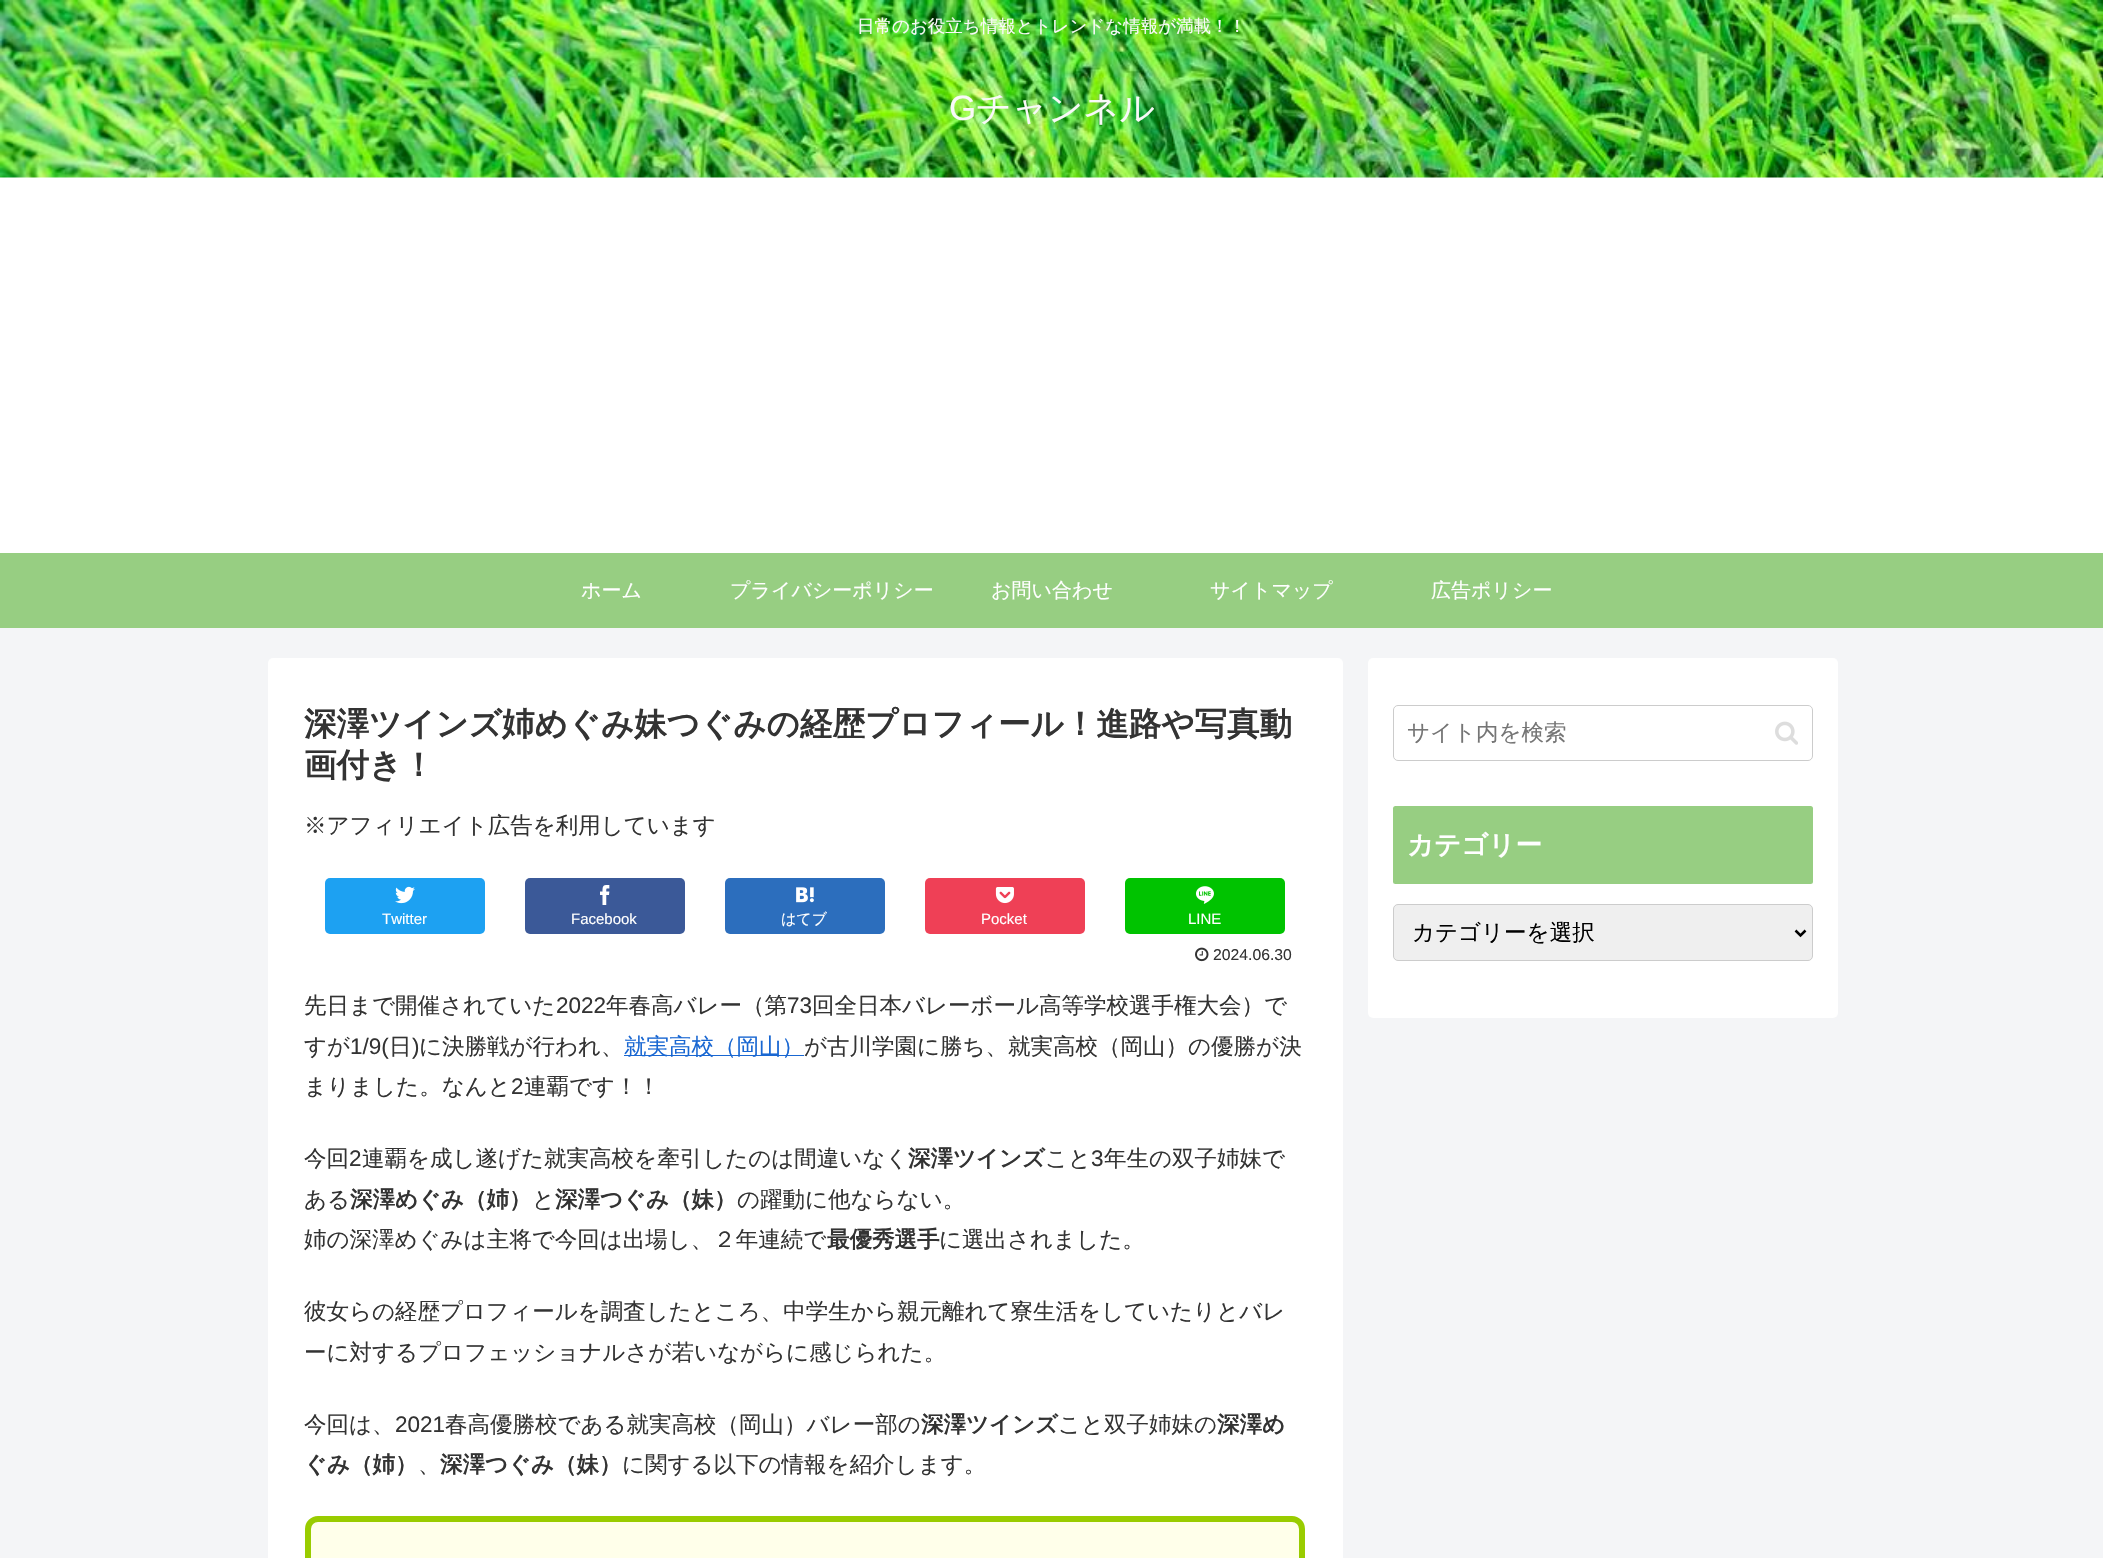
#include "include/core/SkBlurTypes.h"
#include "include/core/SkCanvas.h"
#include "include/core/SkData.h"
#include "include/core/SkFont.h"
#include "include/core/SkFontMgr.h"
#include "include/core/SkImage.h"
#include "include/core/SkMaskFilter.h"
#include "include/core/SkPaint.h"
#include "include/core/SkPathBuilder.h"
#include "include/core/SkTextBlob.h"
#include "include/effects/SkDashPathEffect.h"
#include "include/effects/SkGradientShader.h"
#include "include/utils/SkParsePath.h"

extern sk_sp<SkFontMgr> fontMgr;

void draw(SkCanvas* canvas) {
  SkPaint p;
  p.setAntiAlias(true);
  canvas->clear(SkColorSetRGB(244, 245, 247));
  p.setColor(SK_ColorWHITE);
  canvas->drawRect(SkRect::MakeLTRB(0, 177, 2103, 553), p);
  canvas->drawImageRect(SkImages::DeferredFromEncodedData(SkData::MakeFromFileName("images/1.png")), SkRect::MakeLTRB(0, 0, 2103, 178), SkSamplingOptions());
  p.setColor(SkColorSetRGB(151, 206, 130));
  canvas->drawRect(SkRect::MakeLTRB(0, 553, 2103, 628), p);
  p.setColor(SK_ColorWHITE);
  canvas->drawRoundRect(SkRect::MakeLTRB(268, 658, 1343, 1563), 5, 5, p);
  p.setColor(SkColorSetRGB(29, 161, 242));
  canvas->drawRoundRect(SkRect::MakeLTRB(325, 878, 485, 934), 5, 5, p);
  canvas->drawImageRect(SkImages::DeferredFromEncodedData(SkData::MakeFromFileName("images/2.png")), SkRect::MakeLTRB(395, 886, 415, 904), SkSamplingOptions());
  p.setColor(SkColorSetRGB(59, 89, 152));
  canvas->drawRoundRect(SkRect::MakeLTRB(525, 878, 685, 934), 5, 5, p);
  canvas->drawImageRect(SkImages::DeferredFromEncodedData(SkData::MakeFromFileName("images/3.png")), SkRect::MakeLTRB(600, 885, 610, 905), SkSamplingOptions());
  p.setColor(SkColorSetRGB(44, 110, 189));
  canvas->drawRoundRect(SkRect::MakeLTRB(725, 878, 885, 934), 5, 5, p);
  canvas->drawImageRect(SkImages::DeferredFromEncodedData(SkData::MakeFromFileName("images/4.png")), SkRect::MakeLTRB(796, 887, 814, 903), SkSamplingOptions());
  p.setColor(SkColorSetRGB(239, 64, 86));
  canvas->drawRoundRect(SkRect::MakeLTRB(925, 878, 1085, 934), 5, 5, p);
  canvas->drawImageRect(SkImages::DeferredFromEncodedData(SkData::MakeFromFileName("images/5.png")), SkRect::MakeLTRB(995, 887, 1014, 904), SkSamplingOptions());
  p.setColor(SkColorSetRGB(0, 195, 0));
  canvas->drawRoundRect(SkRect::MakeLTRB(1125, 878, 1285, 934), 5, 5, p);
  canvas->drawImageRect(SkImages::DeferredFromEncodedData(SkData::MakeFromFileName("images/6.png")), SkRect::MakeLTRB(1196, 886, 1214, 904), SkSamplingOptions());
  canvas->drawImageRect(SkImages::DeferredFromEncodedData(SkData::MakeFromFileName("images/7.png")), SkRect::MakeLTRB(1195, 947, 1209, 962), SkSamplingOptions());
  p.setColor(SkColorSetRGB(25, 103, 210));
  canvas->drawRect(SkRect::MakeLTRB(624, 1055, 804, 1056), p);
  p.setColor(SkColorSetRGB(255, 255, 234));
  canvas->drawRoundRect(SkRect::MakeLTRB(308, 1519, 1302, 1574), 10, 10, p);
  p.setStyle(SkPaint::kStroke_Style);
  p.setStrokeWidth(6);
  p.setColor(SkColorSetRGB(153, 204, 0));
  canvas->drawRoundRect(SkRect::MakeLTRB(308, 1519, 1302, 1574), 10, 10, p);
  p.setStyle(SkPaint::kFill_Style);
  p.setColor(SK_ColorWHITE);
  canvas->drawRoundRect(SkRect::MakeLTRB(1368, 658, 1838, 1018), 5, 5, p);
  p.setStyle(SkPaint::kStroke_Style);
  p.setStrokeWidth(1);
  p.setColor(SkColorSetRGB(204, 204, 204));
  canvas->drawRoundRect(SkRect::MakeLTRB(1393.5f, 705.5f, 1812.5f, 760.5f), 4.5f, 4.5f, p);
  canvas->drawImageRect(SkImages::DeferredFromEncodedData(SkData::MakeFromFileName("images/8.png")), SkRect::MakeLTRB(1775, 721, 1798, 745), SkSamplingOptions());
  p.setStyle(SkPaint::kFill_Style);
  p.setColor(SkColorSetRGB(151, 206, 130));
  canvas->drawRoundRect(SkRect::MakeLTRB(1393, 806, 1813, 884), 2.5f, 2.5f, p);
  p.setColor(SkColorSetRGB(239, 239, 239));
  canvas->drawRoundRect(SkRect::MakeLTRB(1393.5f, 904.5f, 1812.5f, 960.5f), 4.5f, 4.5f, p);
  p.setStyle(SkPaint::kStroke_Style);
  p.setColor(SkColorSetRGB(204, 204, 204));
  canvas->drawRoundRect(SkRect::MakeLTRB(1393.5f, 904.5f, 1812.5f, 960.5f), 4.5f, 4.5f, p);
  p.setStrokeWidth(2.5f);
  p.setColor(SK_ColorBLACK);
  canvas->drawPath(SkPathBuilder().moveTo(1795.5f, 930.5f).lineTo(1800.5f, 935.5f).lineTo(1805.5f, 930.5f).detach(), p);
  SkFont font1(fontMgr->matchFamilyStyle("WenQuanYi Zen Hei", SkFontStyle(500, SkFontStyle::kNormal_Width, SkFontStyle::kUpright_Slant)), 17.5f);
  font1.setSubpixel(true);
  p.setStyle(SkPaint::kFill_Style);
  p.setColor(SkColorSetRGB(249, 249, 249));
  canvas->drawString("日常のお役立ち情報とトレンドな情報が満載！！", 857, 32, font1, p);
  SkFont font2(fontMgr->matchFamilyStyle("Liberation Sans", SkFontStyle::Normal()), 35);
  font2.setSubpixel(true);
  canvas->drawString("G", 949, 120, font2, p);
  SkFont font3(fontMgr->matchFamilyStyle("WenQuanYi Zen Hei", SkFontStyle(500, SkFontStyle::kNormal_Width, SkFontStyle::kUpright_Slant)), 35);
  font3.setSubpixel(true);
  canvas->drawString("チャンネル", 976, 120, font3, p);
  SkFont font4(fontMgr->matchFamilyStyle("WenQuanYi Zen Hei", SkFontStyle(500, SkFontStyle::kNormal_Width, SkFontStyle::kUpright_Slant)), 20);
  font4.setSubpixel(true);
  p.setColor(SK_ColorWHITE);
  canvas->drawString("ホーム", 581, 597, font4, p);
  canvas->drawString("プライバシーポリシー", 730, 597, font4, p);
  canvas->drawString("お問い合わせ", 991, 597, font4, p);
  canvas->drawString("サイトマップ", 1210, 597, font4, p);
  canvas->drawString("広告ポリシー", 1431, 597, font4, p);
  SkFont font5(fontMgr->matchFamilyStyle("WenQuanYi Zen Hei", SkFontStyle::Bold()), 32.5f);
  font5.setSubpixel(true);
  p.setColor(SkColorSetRGB(51, 51, 51));
  canvas->drawString("深澤ツインズ姉めぐみ妹つぐみの経歴プロフィール！進路や写真動", 304, 735, font5, p);
  canvas->drawString("画付き！", 304, 776, font5, p);
  SkFont font6(fontMgr->matchFamilyStyle("WenQuanYi Zen Hei", SkFontStyle(500, SkFontStyle::kNormal_Width, SkFontStyle::kUpright_Slant)), 22.5f);
  font6.setSubpixel(true);
  canvas->drawString("※アフィリエイト広告を利用しています", 304, 833, font6, p);
  SkFont font7(fontMgr->matchFamilyStyle("Liberation Sans", SkFontStyle::Normal()), 15);
  font7.setSubpixel(true);
  p.setColor(SK_ColorWHITE);
  canvas->drawString("Twitter", 382, 924, font7, p);
  canvas->drawString("Facebook", 571, 924, font7, p);
  SkFont font8(fontMgr->matchFamilyStyle("WenQuanYi Zen Hei", SkFontStyle(500, SkFontStyle::kNormal_Width, SkFontStyle::kUpright_Slant)), 15);
  font8.setSubpixel(true);
  canvas->drawString("はてブ", 781, 924, font8, p);
  canvas->drawString("Pocket", 981, 924, font7, p);
  canvas->drawString("LINE", 1188, 924, font7, p);
  SkFont font9(fontMgr->matchFamilyStyle("Liberation Sans", SkFontStyle::Normal()), 15.75f);
  font9.setSubpixel(true);
  p.setColor(SkColorSetRGB(51, 51, 51));
  canvas->drawString("2024.06.30", 1213, 960, font9, p);
  canvas->drawString("先日まで開催されていた", 304, 1013, font6, p);
  SkFont font10(fontMgr->matchFamilyStyle("Liberation Sans", SkFontStyle::Normal()), 22.5f);
  font10.setSubpixel(true);
  canvas->drawString("2022", 556, 1013, font10, p);
  canvas->drawString("年春高バレー（第", 606, 1013, font6, p);
  canvas->drawString("73", 787, 1013, font10, p);
  canvas->drawString("回全日本バレーボール高等学校選手権大会）で", 812, 1013, font6, p);
  canvas->drawString("すが", 304, 1054, font6, p);
  canvas->drawString("1/9(", 350, 1054, font10, p);
  canvas->drawString("日", 389, 1054, font6, p);
  canvas->drawString(")", 412, 1054, font10, p);
  canvas->drawString("に決勝戦が行われ、", 419, 1054, font6, p);
  p.setColor(SkColorSetRGB(25, 103, 210));
  canvas->drawString("就実高校（岡山）", 624, 1054, font6, p);
  p.setColor(SkColorSetRGB(51, 51, 51));
  canvas->drawString("が古川学園に勝ち、就実高校（岡山）の優勝が決", 804, 1054, font6, p);
  canvas->drawString("まりました。なんと", 304, 1094, font6, p);
  canvas->drawString("2", 511, 1094, font10, p);
  canvas->drawString("連覇です！！", 524, 1094, font6, p);
  canvas->drawString("今回", 304, 1166, font6, p);
  canvas->drawString("2", 349, 1166, font10, p);
  canvas->drawString("連覇を成し遂げた就実高校を牽引したのは間違いなく", 362, 1166, font6, p);
  SkFont font11(fontMgr->matchFamilyStyle("WenQuanYi Zen Hei", SkFontStyle::Bold()), 22.5f);
  font11.setSubpixel(true);
  canvas->drawString("深澤ツインズ", 908, 1166, font11, p);
  canvas->drawString("こと", 1045, 1166, font6, p);
  canvas->drawString("3", 1091, 1166, font10, p);
  canvas->drawString("年生の双子姉妹で", 1104, 1166, font6, p);
  canvas->drawString("ある", 304, 1207, font6, p);
  canvas->drawString("深澤めぐみ（姉）", 350, 1207, font11, p);
  canvas->drawString("と", 532, 1207, font6, p);
  canvas->drawString("深澤つぐみ（妹）", 555, 1207, font11, p);
  canvas->drawString("の躍動に他ならない。", 737, 1207, font6, p);
  canvas->drawString("姉の深澤めぐみは主将で今回は出場し、２年連続で", 304, 1247, font6, p);
  canvas->drawString("最優秀選手", 827, 1247, font11, p);
  canvas->drawString("に選出されました。", 939, 1247, font6, p);
  canvas->drawString("彼女らの経歴プロフィールを調査したところ、中学生から親元離れて寮生活をしていたりとバレ", 304, 1319, font6, p);
  canvas->drawString("ーに対するプロフェッショナルさが若いながらに感じられた。", 304, 1360, font6, p);
  canvas->drawString("今回は、", 304, 1432, font6, p);
  canvas->drawString("2021", 395, 1432, font10, p);
  canvas->drawString("春高優勝校である就実高校（岡山）バレー部の", 445, 1432, font6, p);
  canvas->drawString("深澤ツインズ", 921, 1432, font11, p);
  canvas->drawString("こと双子姉妹の", 1058, 1432, font6, p);
  canvas->drawString("深澤め", 1217, 1432, font11, p);
  canvas->drawString("ぐみ（姉）", 304, 1472, font11, p);
  canvas->drawString("、", 418, 1472, font6, p);
  canvas->drawString("深澤つぐみ（妹）", 440, 1472, font11, p);
  canvas->drawString("に関する以下の情報を紹介します。", 622, 1472, font6, p);
  p.setColor(SkColorSetRGB(117, 117, 117));
  canvas->drawString("サイト内を検索", 1407, 740, font6, p);
  SkFont font12(fontMgr->matchFamilyStyle("WenQuanYi Zen Hei", SkFontStyle::Bold()), 26.5f);
  font12.setSubpixel(true);
  p.setColor(SK_ColorWHITE);
  canvas->drawString("カテゴリー", 1407, 854, font12, p);
  p.setColor(SK_ColorBLACK);
  canvas->drawString("カテゴリーを選択", 1412, 940, font6, p);
}
